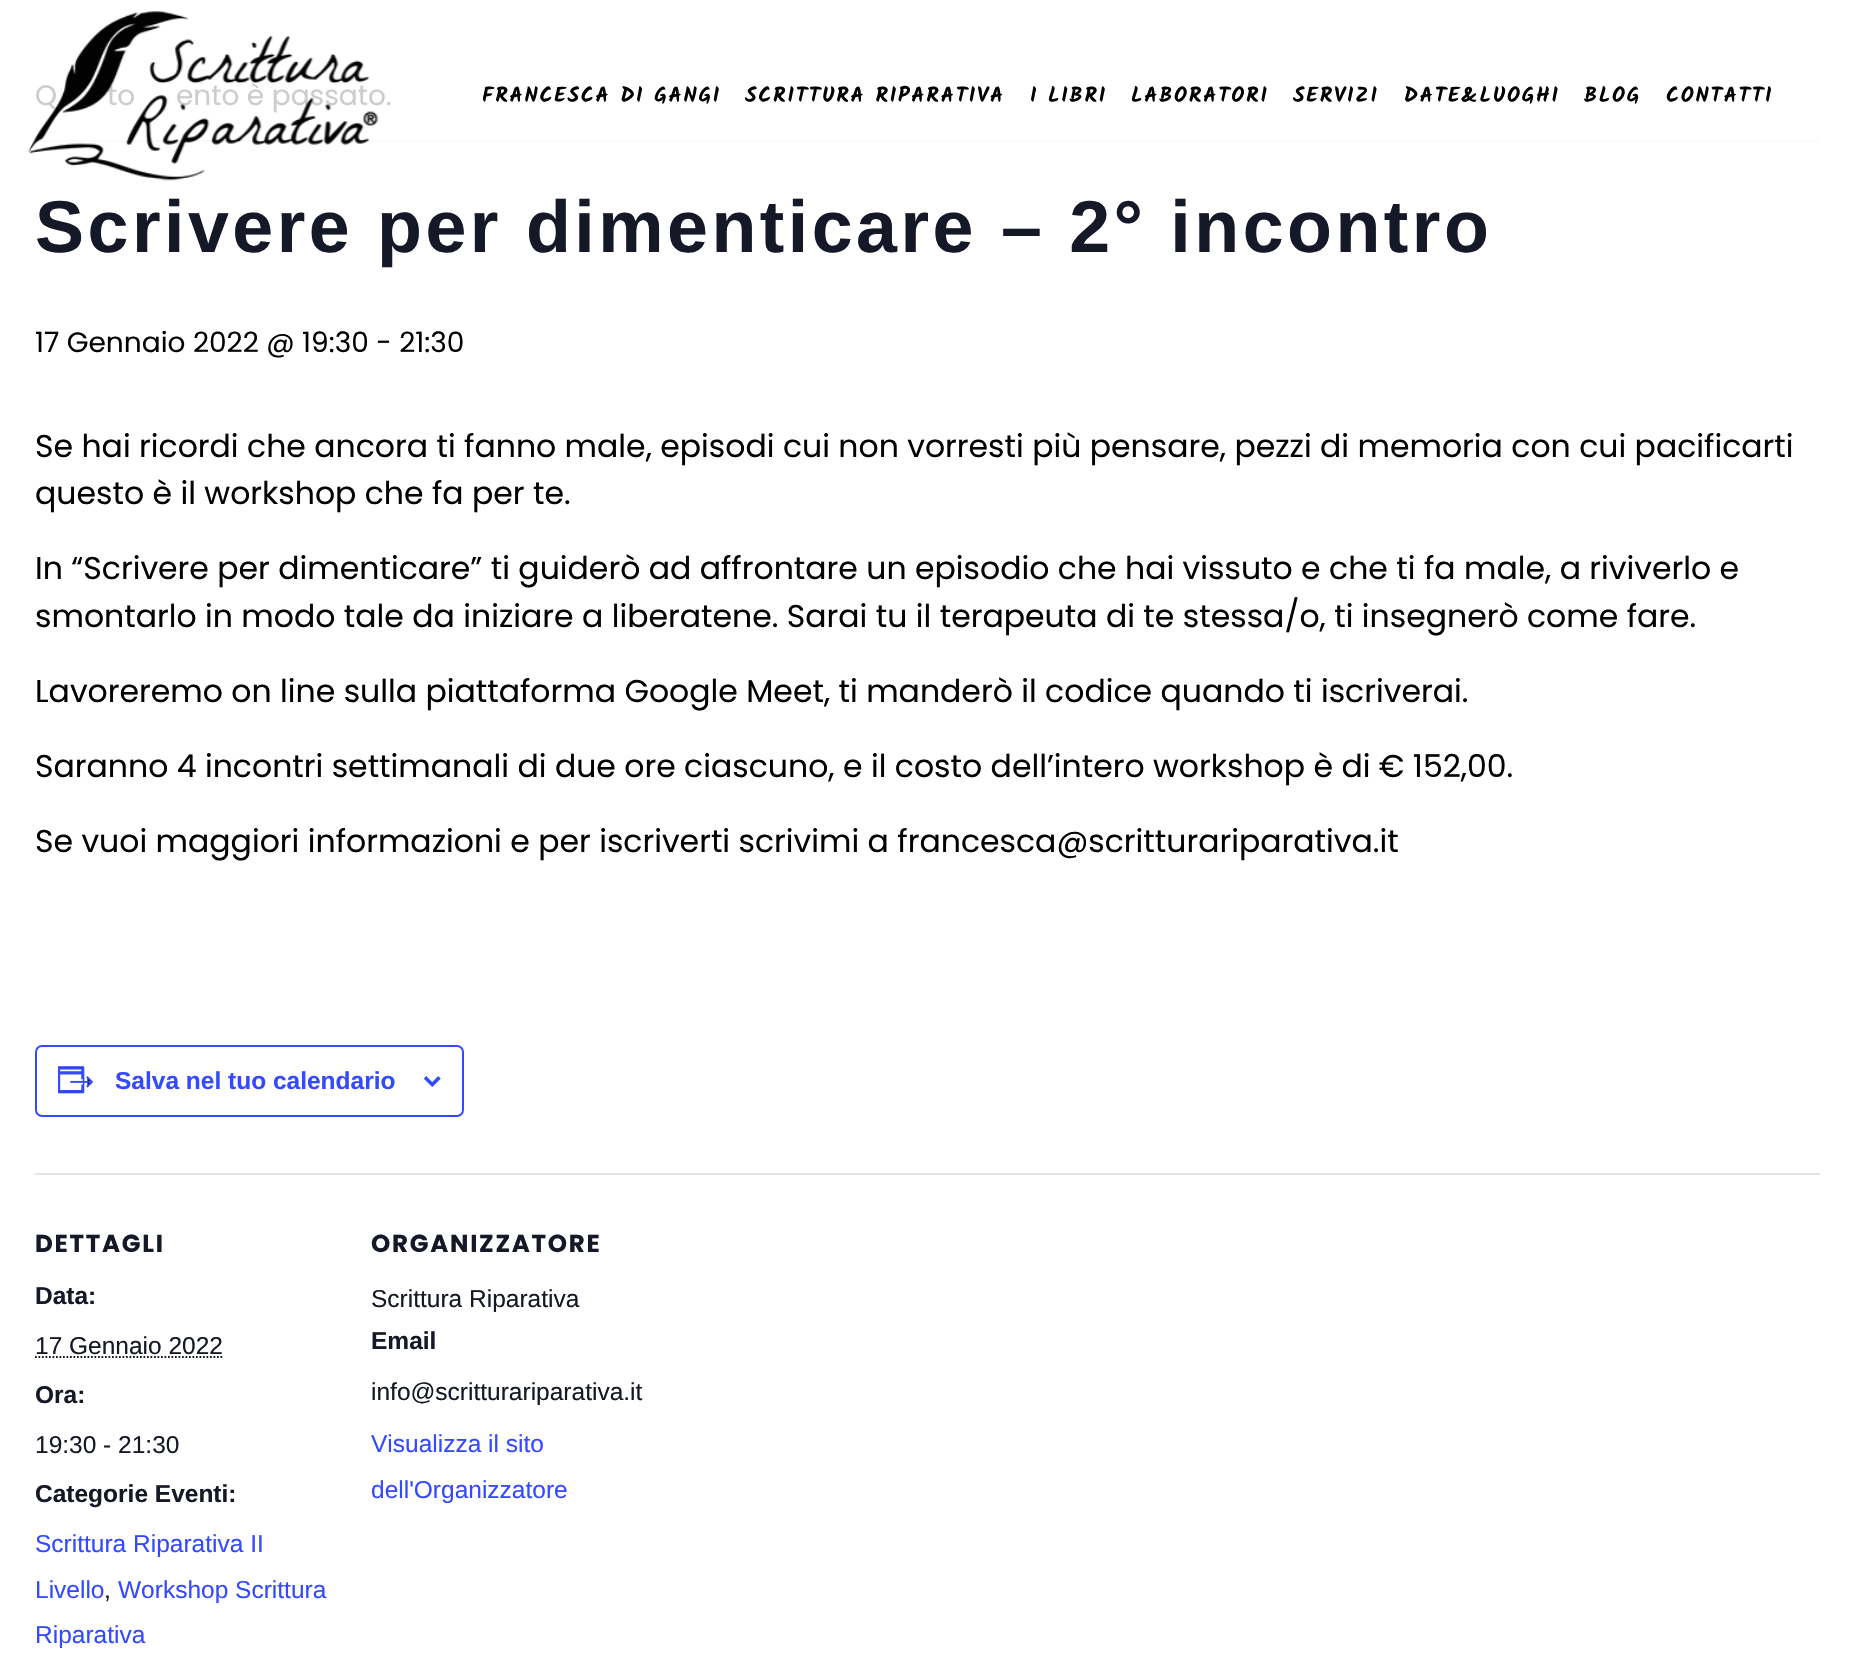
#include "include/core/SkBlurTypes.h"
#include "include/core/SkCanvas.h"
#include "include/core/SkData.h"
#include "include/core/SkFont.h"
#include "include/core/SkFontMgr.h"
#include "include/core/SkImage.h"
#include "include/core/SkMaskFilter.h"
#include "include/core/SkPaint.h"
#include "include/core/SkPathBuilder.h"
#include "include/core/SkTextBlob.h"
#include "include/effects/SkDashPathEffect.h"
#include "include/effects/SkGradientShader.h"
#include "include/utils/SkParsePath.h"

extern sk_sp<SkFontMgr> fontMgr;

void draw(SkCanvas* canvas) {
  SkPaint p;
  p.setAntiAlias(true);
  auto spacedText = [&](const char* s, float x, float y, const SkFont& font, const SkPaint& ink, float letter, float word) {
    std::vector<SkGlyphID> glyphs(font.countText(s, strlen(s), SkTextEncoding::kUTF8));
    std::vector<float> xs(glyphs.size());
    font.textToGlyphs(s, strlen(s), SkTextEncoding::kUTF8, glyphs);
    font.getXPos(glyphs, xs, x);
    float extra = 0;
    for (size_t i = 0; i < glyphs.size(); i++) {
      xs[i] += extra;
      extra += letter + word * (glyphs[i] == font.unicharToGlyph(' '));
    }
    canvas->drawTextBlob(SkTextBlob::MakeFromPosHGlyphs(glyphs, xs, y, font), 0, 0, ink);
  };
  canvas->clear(SK_ColorWHITE);
  p.setColor(SkColorSetRGB(250, 250, 250));
  canvas->drawRect(SkRect::MakeLTRB(35, 140, 1820, 142), p);
  p.setStyle(SkPaint::kStroke_Style);
  p.setStrokeWidth(2);
  p.setColor(SkColorSetRGB(51, 74, 255));
  canvas->drawRoundRect(SkRect::MakeLTRB(36, 1046, 463, 1116), 6, 6, p);
  canvas->drawImageRect(SkImages::DeferredFromEncodedData(SkData::MakeFromFileName("images/1.png")), SkRect::MakeLTRB(58, 1066, 93, 1094), SkSamplingOptions());
  canvas->drawImageRect(SkImages::DeferredFromEncodedData(SkData::MakeFromFileName("images/2.png")), SkRect::MakeLTRB(424, 1076, 441, 1087), SkSamplingOptions());
  p.setStyle(SkPaint::kFill_Style);
  p.setColor(SkColorSetRGB(228, 228, 228));
  canvas->drawRect(SkRect::MakeLTRB(35, 1173, 1820, 1175), p);
  p.setStyle(SkPaint::kStroke_Style);
  p.setStrokeWidth(1.8f);
  p.setColor(SkColorSetRGB(20, 24, 39));
  p.setPathEffect(SkDashPathEffect::Make({{1.75f, 1.75f}}, 0));
  canvas->drawPath(SkPathBuilder().moveTo(35, 1357).lineTo(223, 1357).detach(), p);
  p.setPathEffect(nullptr);
  SkFont font1(fontMgr->matchFamilyStyle("Poppins", SkFontStyle::Normal()), 28);
  font1.setSubpixel(true);
  p.setStyle(SkPaint::kFill_Style);
  p.setColor(SkColorSetRGB(204, 204, 204));
  canvas->drawString("Q", 35, 105, font1, p);
  canvas->drawString("to", 107, 105, font1, p);
  canvas->drawString("ento è passato.", 176, 105, font1, p);
  SkFont font2(fontMgr->matchFamilyStyle("Liberation Sans", SkFontStyle::Bold()), 73.5f);
  font2.setSubpixel(true);
  p.setColor(SkColorSetRGB(20, 24, 39));
  spacedText("Scrivere per dimenticare – 2° incontro", 35, 252, font2, p, 3.5f, 0);
  p.setColor(SkColorSetRGB(2, 2, 2));
  canvas->drawString("17 Gennaio 2022 @ 19:30 - 21:30", 35, 352, font1, p);
  SkFont font3(fontMgr->matchFamilyStyle("Poppins", SkFontStyle::Normal()), 31.5f);
  font3.setSubpixel(true);
  canvas->drawString("Se hai ricordi che ancora ti fanno male, episodi cui non vorresti più pensare, pezzi di memoria con cui pacificarti", 35, 457, font3, p);
  canvas->drawString("questo è il workshop che fa per te.", 35, 504, font3, p);
  canvas->drawString("In “Scrivere per dimenticare” ti guiderò ad affrontare un episodio che hai vissuto e che ti fa male, a riviverlo e", 35, 579, font3, p);
  canvas->drawString("smontarlo in modo tale da iniziare a liberatene. Sarai tu il terapeuta di te stessa/o, ti insegnerò come fare.", 35, 627, font3, p);
  canvas->drawString("Lavoreremo on line sulla piattaforma Google Meet, ti manderò il codice quando ti iscriverai.", 35, 702, font3, p);
  canvas->drawString("Saranno 4 incontri settimanali di due ore ciascuno, e il costo dell’intero workshop è di € 152,00.", 35, 777, font3, p);
  canvas->drawString("Se vuoi maggiori informazioni e per iscriverti scrivimi a francesca@scritturariparativa.it", 35, 852, font3, p);
  SkFont font4(fontMgr->matchFamilyStyle("Liberation Sans", SkFontStyle::Bold()), 24.5f);
  font4.setSubpixel(true);
  p.setColor(SkColorSetRGB(51, 74, 255));
  canvas->drawString("Salva nel tuo calendario", 115, 1089, font4, p);
  SkFont font5(fontMgr->matchFamilyStyle("Poppins", SkFontStyle::Bold()), 24.5f);
  font5.setSubpixel(true);
  p.setColor(SkColorSetRGB(20, 24, 39));
  spacedText("DETTAGLI", 35, 1252, font5, p, 1.75f, 0);
  canvas->drawString("Data:", 35, 1304, font4, p);
  SkFont font6(fontMgr->matchFamilyStyle("Liberation Sans", SkFontStyle::Normal()), 24.5f);
  font6.setSubpixel(true);
  canvas->drawString("17 Gennaio 2022", 35, 1354, font6, p);
  canvas->drawString("Ora:", 35, 1403, font4, p);
  canvas->drawString("19:30 - 21:30", 35, 1453, font6, p);
  canvas->drawString("Categorie Eventi:", 35, 1502, font4, p);
  p.setColor(SkColorSetRGB(51, 74, 255));
  canvas->drawString("Scrittura Riparativa II", 35, 1552, font6, p);
  canvas->drawString("Livello", 35, 1598, font6, p);
  p.setColor(SkColorSetRGB(20, 24, 39));
  canvas->drawString(",", 104, 1598, font6, p);
  p.setColor(SkColorSetRGB(51, 74, 255));
  canvas->drawString("Workshop Scrittura", 118, 1598, font6, p);
  canvas->drawString("Riparativa", 35, 1643, font6, p);
  p.setColor(SkColorSetRGB(20, 24, 39));
  spacedText("ORGANIZZATORE", 371, 1252, font5, p, 1.75f, 0);
  canvas->drawString("Scrittura Riparativa", 371, 1307, font6, p);
  canvas->drawString("Email", 371, 1349, font4, p);
  canvas->drawString("info@scritturariparativa.it", 371, 1400, font6, p);
  p.setColor(SkColorSetRGB(51, 74, 255));
  canvas->drawString("Visualizza il sito", 371, 1452, font6, p);
  canvas->drawString("dell'Organizzatore", 371, 1498, font6, p);
  canvas->drawImageRect(SkImages::DeferredFromEncodedData(SkData::MakeFromFileName("images/3.png")), SkRect::MakeLTRB(28, 11, 379, 181), SkSamplingOptions());
  SkFont font7(fontMgr->matchFamilyStyle("Kalam", SkFontStyle::Bold()), 21);
  font7.setSubpixel(true);
  p.setColor(SkColorSetRGB(2, 2, 2));
  spacedText("FRANCESCA DI GANGI", 482, 102, font7, p, 1.75f, 0);
  spacedText("SCRITTURA RIPARATIVA", 745, 102, font7, p, 1.75f, 0);
  spacedText("I LIBRI", 1030, 102, font7, p, 1.75f, 0);
  spacedText("LABORATORI", 1131, 102, font7, p, 1.75f, 0);
  spacedText("SERVIZI", 1293, 102, font7, p, 1.75f, 0);
  spacedText("DATE&LUOGHI", 1404, 102, font7, p, 1.75f, 0);
  spacedText("BLOG", 1584, 102, font7, p, 1.75f, 0);
  spacedText("CONTATTI", 1666, 102, font7, p, 1.75f, 0);
}
